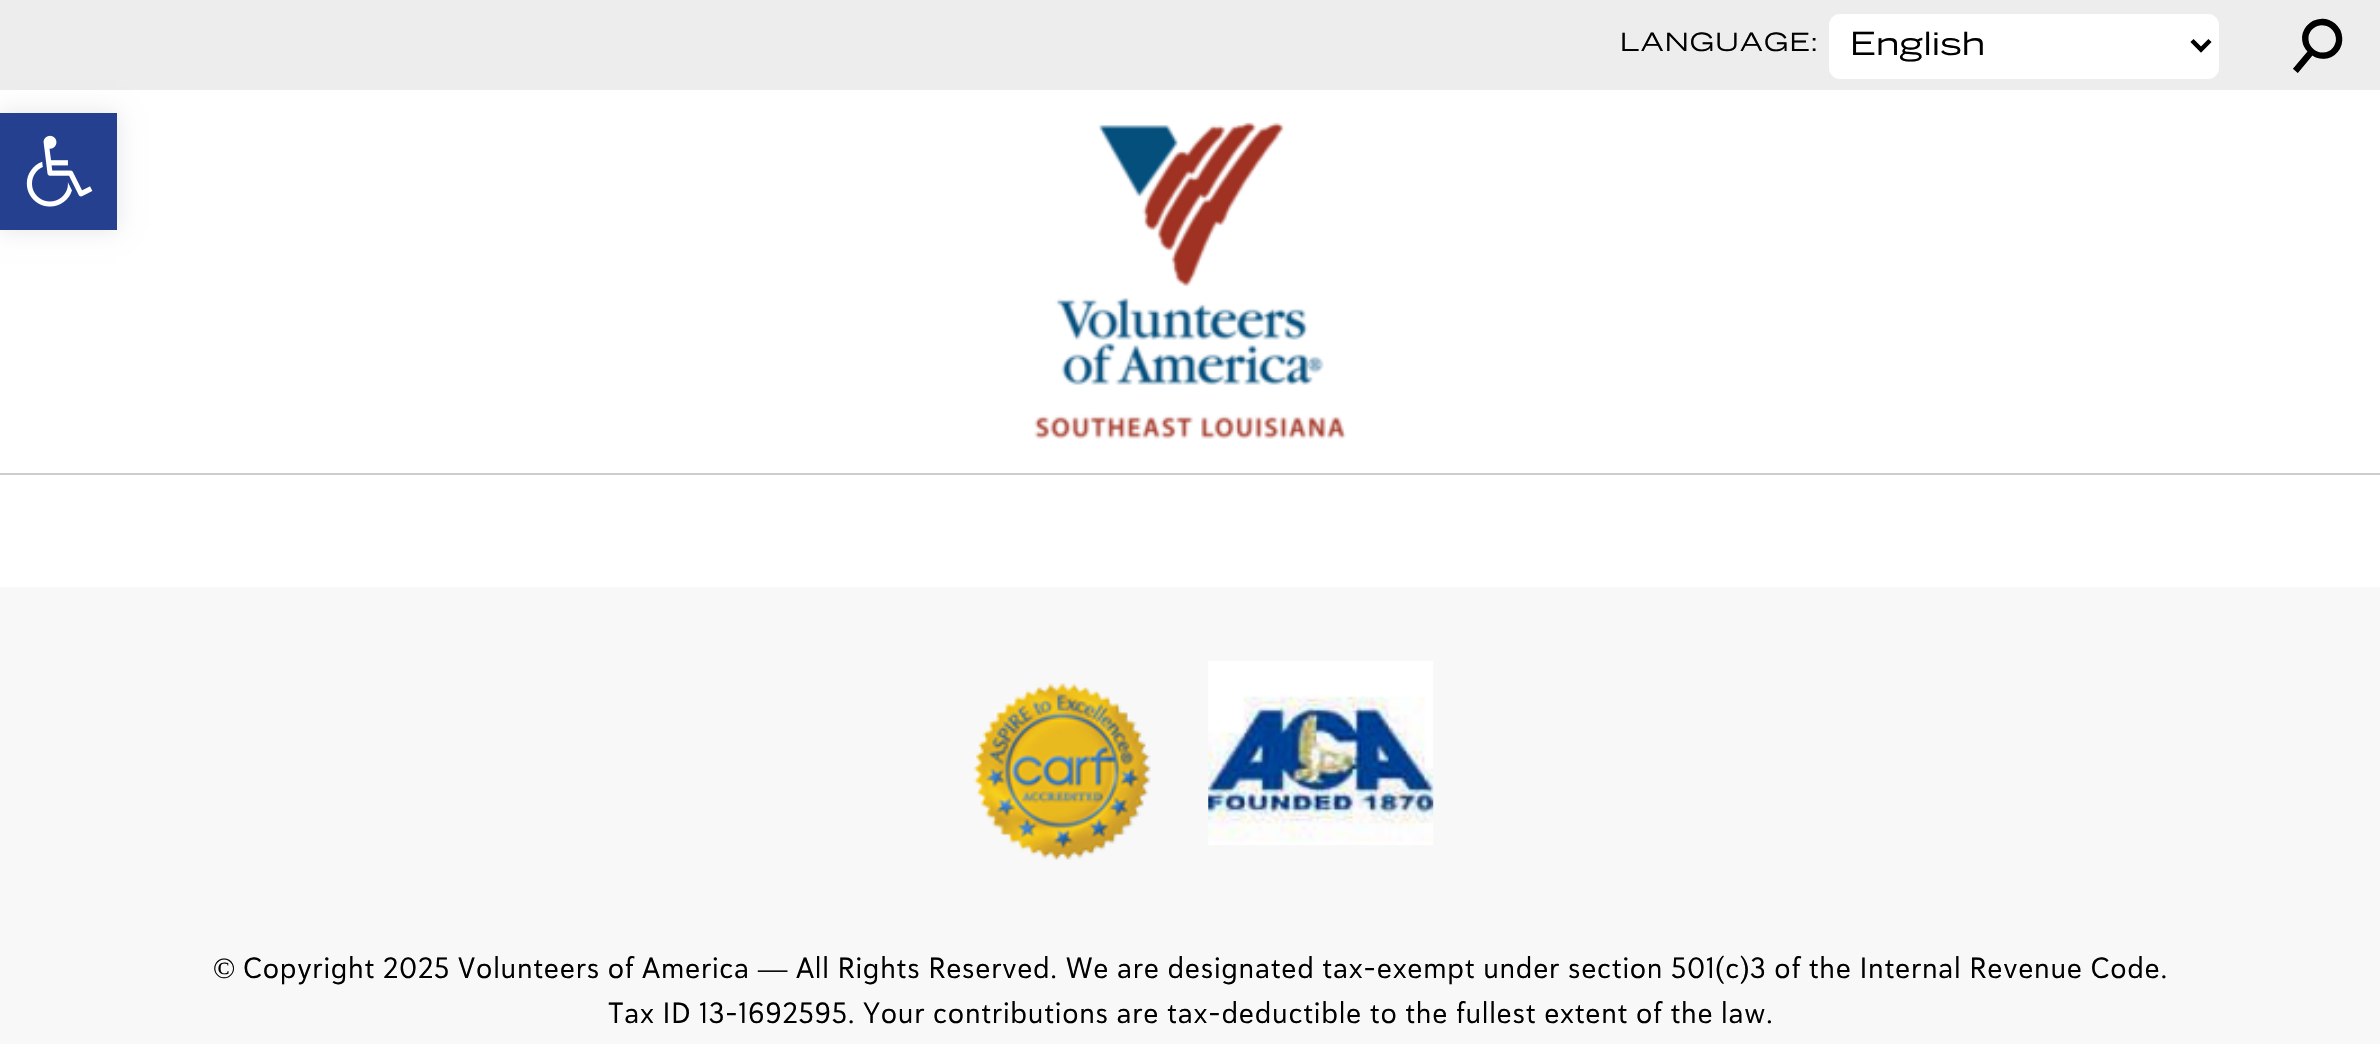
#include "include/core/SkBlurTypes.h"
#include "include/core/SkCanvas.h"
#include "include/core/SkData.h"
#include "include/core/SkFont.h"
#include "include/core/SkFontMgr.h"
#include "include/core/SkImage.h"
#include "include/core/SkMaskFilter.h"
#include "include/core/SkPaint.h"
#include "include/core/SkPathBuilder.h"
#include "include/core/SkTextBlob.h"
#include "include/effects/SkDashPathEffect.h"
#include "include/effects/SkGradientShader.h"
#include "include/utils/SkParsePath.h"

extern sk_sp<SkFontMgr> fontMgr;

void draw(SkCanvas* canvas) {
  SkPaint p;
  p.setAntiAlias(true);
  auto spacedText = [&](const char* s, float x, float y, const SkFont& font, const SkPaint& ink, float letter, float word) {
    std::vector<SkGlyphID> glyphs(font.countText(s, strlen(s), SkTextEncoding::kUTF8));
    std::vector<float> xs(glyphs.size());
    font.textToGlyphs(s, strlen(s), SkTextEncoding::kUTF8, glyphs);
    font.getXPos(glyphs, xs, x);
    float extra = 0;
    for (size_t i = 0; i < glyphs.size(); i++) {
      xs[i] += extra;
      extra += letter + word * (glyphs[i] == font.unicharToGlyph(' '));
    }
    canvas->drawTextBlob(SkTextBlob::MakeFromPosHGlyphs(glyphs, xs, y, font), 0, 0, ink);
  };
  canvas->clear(SkColorSetRGB(248, 248, 248));
  p.setColor(SK_ColorWHITE);
  canvas->drawRect(SkRect::MakeLTRB(0, 90, 2380, 587), p);
  p.setColor(SkColorSetRGB(237, 237, 237));
  canvas->drawRect(SkRect::MakeLTRB(0, 0, 2380, 90), p);
  p.setColor(SK_ColorWHITE);
  canvas->drawRoundRect(SkRect::MakeLTRB(1829, 14, 2219, 79), 11, 11, p);
  p.setStyle(SkPaint::kStroke_Style);
  p.setStrokeWidth(4.5f);
  p.setColor(SK_ColorBLACK);
  canvas->drawPath(SkPathBuilder().moveTo(2192, 40.5f).lineTo(2201, 49.5f).lineTo(2210, 40.5f).detach(), p);
  p.setStyle(SkPaint::kFill_Style);
  p.setColor(SkColorSetRGB(204, 204, 204));
  canvas->drawRect(SkRect::MakeLTRB(0, 473, 2380, 475), p);
  canvas->drawImageRect(SkImages::DeferredFromEncodedData(SkData::MakeFromFileName("images/1.png")), SkRect::MakeLTRB(1034, 122, 1346, 439), SkSamplingOptions());
  p.setColor(SkColorSetARGB(26, 0, 0, 0));
  p.setMaskFilter(SkMaskFilter::MakeBlur(kNormal_SkBlurStyle, 11));
  canvas->drawRect(SkRect::MakeLTRB(0, 113, 117, 230), p);
  p.setMaskFilter(nullptr);
  p.setColor(SkColorSetRGB(37, 64, 143));
  canvas->drawRect(SkRect::MakeLTRB(0, 113, 117, 230), p);
  canvas->drawImageRect(SkImages::DeferredFromEncodedData(SkData::MakeFromFileName("images/2.png")), SkRect::MakeLTRB(26, 135, 93, 207), SkSamplingOptions());
  canvas->drawImageRect(SkImages::DeferredFromEncodedData(SkData::MakeFromFileName("images/3.png")), SkRect::MakeLTRB(973, 683, 1151, 860), SkSamplingOptions());
  canvas->drawImageRect(SkImages::DeferredFromEncodedData(SkData::MakeFromFileName("images/4.png")), SkRect::MakeLTRB(1208, 661, 1434, 845), SkSamplingOptions());
  SkFont font1(fontMgr->matchFamilyStyle("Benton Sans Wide", SkFontStyle::Normal()), 24.75f);
  font1.setSubpixel(true);
  p.setColor(SK_ColorBLACK);
  spacedText("LANGUAGE:", 1620, 51, font1, p, 0.72f, 0);
  SkFont font2(fontMgr->matchFamilyStyle("Benton Sans Wide", SkFontStyle::Normal()), 31.5f);
  font2.setSubpixel(true);
  canvas->drawString("English", 1850, 55, font2, p);
  SkFont font3(fontMgr->matchFamilyStyle("DejaVu Sans", SkFontStyle::Normal()), 72);
  font3.setSubpixel(true);
  canvas->save();
  canvas->rotate(40, 2281, 47);
  spacedText("⚲", 2281, 47, font3, p, 0.72f, 0);
  canvas->restore();
  SkFont font4(fontMgr->matchFamilyStyle("Liberation Serif", SkFontStyle::Normal()), 29.25f);
  font4.setSubpixel(true);
  spacedText("©", 213, 978, font4, p, 0.72f, 0);
  SkFont font5(fontMgr->matchFamilyStyle("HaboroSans", SkFontStyle::Normal()), 29.25f);
  font5.setSubpixel(true);
  spacedText("Copyright 2025 Volunteers of America", 243, 978, font5, p, 0.72f, 0);
  spacedText("—", 758, 978, font4, p, 0.72f, 0);
  spacedText("All Rights Reserved. We are designated tax-exempt under section 501(c)3 of the Internal Revenue Code.", 796, 978, font5, p, 0.72f, 0);
  spacedText("Tax ID 13-1692595. Your contributions are tax-deductible to the fullest extent of the law.", 608, 1023, font5, p, 0.72f, 0);
}
